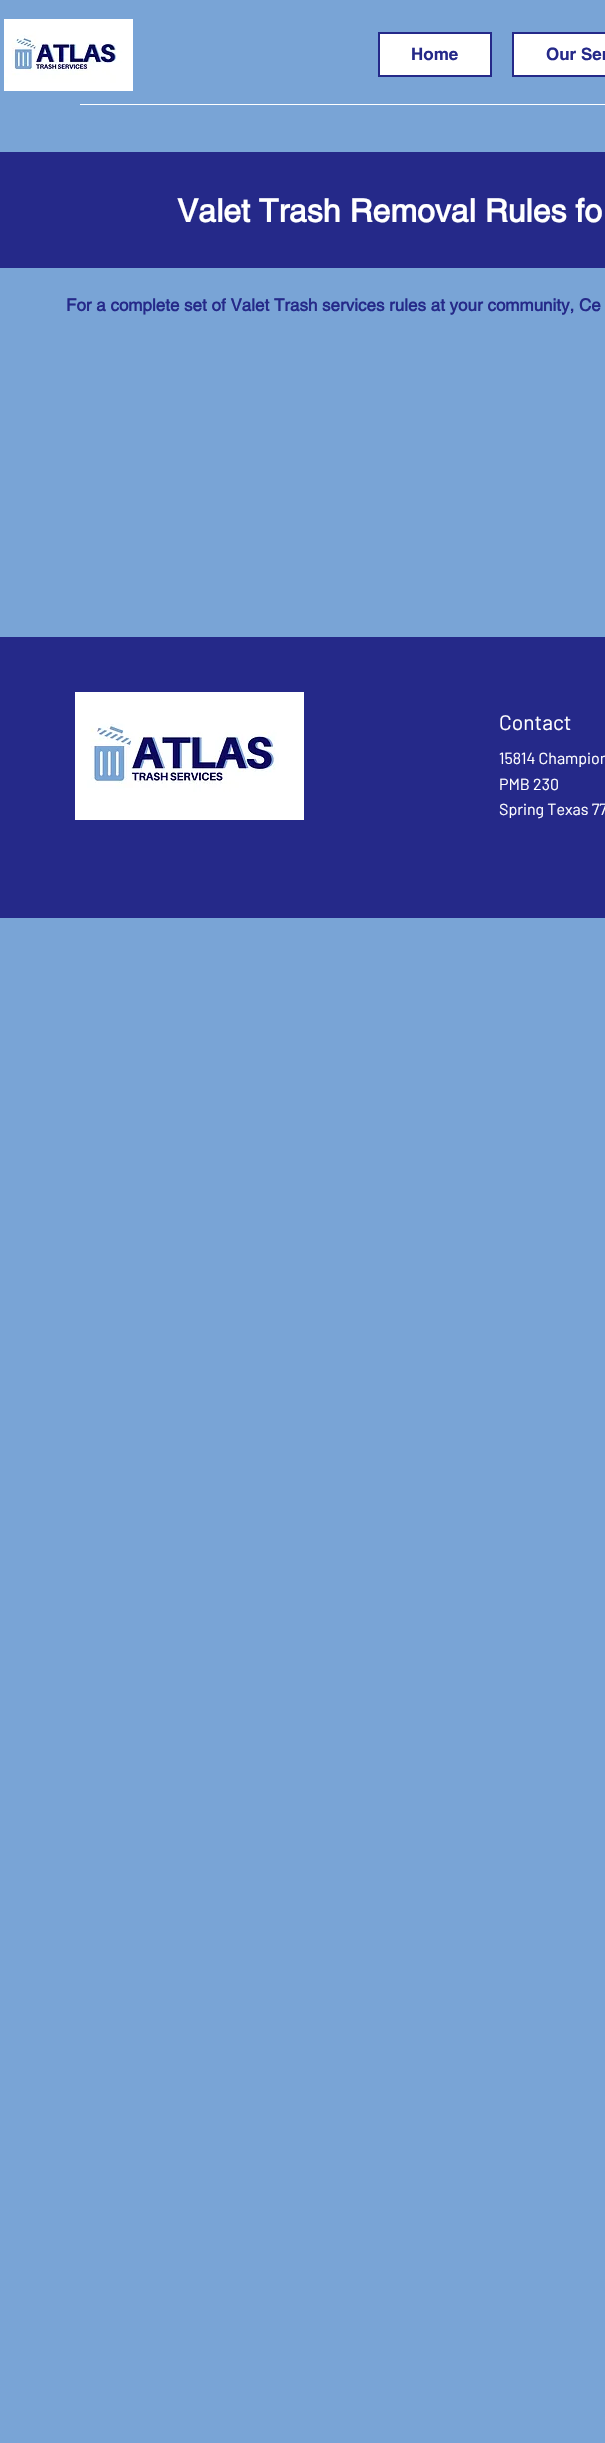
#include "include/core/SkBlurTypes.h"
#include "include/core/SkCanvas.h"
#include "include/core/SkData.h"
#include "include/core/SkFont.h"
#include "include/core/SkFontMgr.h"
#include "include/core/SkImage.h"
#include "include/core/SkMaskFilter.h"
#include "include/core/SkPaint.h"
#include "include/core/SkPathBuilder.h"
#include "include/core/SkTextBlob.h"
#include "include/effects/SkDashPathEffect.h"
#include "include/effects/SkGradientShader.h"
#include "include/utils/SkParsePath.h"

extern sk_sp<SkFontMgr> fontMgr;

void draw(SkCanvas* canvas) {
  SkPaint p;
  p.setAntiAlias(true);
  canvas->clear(SkColorSetRGB(121, 164, 214));
  canvas->drawImageRect(SkImages::DeferredFromEncodedData(SkData::MakeFromFileName("images/1.png")), SkRect::MakeLTRB(4, 19, 133, 91), SkSamplingOptions());
  p.setColor(SK_ColorWHITE);
  canvas->drawRect(SkRect::MakeLTRB(379, 33, 491, 76), p);
  p.setStyle(SkPaint::kStroke_Style);
  p.setStrokeWidth(2);
  p.setColor(SkColorSetRGB(37, 41, 137));
  canvas->drawRect(SkRect::MakeLTRB(379, 33, 491, 76), p);
  p.setStyle(SkPaint::kFill_Style);
  p.setColor(SK_ColorWHITE);
  canvas->drawRect(SkRect::MakeLTRB(513, 33, 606, 76), p);
  p.setStyle(SkPaint::kStroke_Style);
  p.setColor(SkColorSetRGB(37, 41, 137));
  canvas->drawRect(SkRect::MakeLTRB(513, 33, 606, 76), p);
  p.setStyle(SkPaint::kFill_Style);
  p.setColor(SK_ColorWHITE);
  canvas->drawRect(SkRect::MakeLTRB(80, 104, 605, 105), p);
  p.setColor(SkColorSetRGB(37, 41, 137));
  canvas->drawRect(SkRect::MakeLTRB(0, 152, 605, 268), p);
  canvas->drawRect(SkRect::MakeLTRB(0, 637, 605, 918), p);
  canvas->drawImageRect(SkImages::DeferredFromEncodedData(SkData::MakeFromFileName("images/2.png")), SkRect::MakeLTRB(75, 692, 304, 820), SkSamplingOptions());
  SkFont font1(fontMgr->matchFamilyStyle("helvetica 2", SkFontStyle::Bold()), 17);
  font1.setSubpixel(true);
  canvas->drawString("Home", 411, 60, font1, p);
  canvas->drawString("Our Ser", 546, 60, font1, p);
  SkFont font2(fontMgr->matchFamilyStyle("helvetica", SkFontStyle::Bold()), 32);
  font2.setSubpixel(true);
  p.setColor(SK_ColorWHITE);
  canvas->drawString("Valet Trash Removal Rules fo", 177, 222, font2, p);
  SkFont font3(fontMgr->matchFamilyStyle("helvetica", SkFontStyle::Bold()), 17);
  font3.setSubpixel(true);
  p.setColor(SkColorSetRGB(37, 41, 137));
  canvas->drawString("For a complete set of Valet Trash services rules at your community, Ce", 66, 311, font3, p);
  SkFont font4(fontMgr->matchFamilyStyle("Barlow", SkFontStyle::Normal()), 21);
  font4.setSubpixel(true);
  p.setColor(SK_ColorWHITE);
  canvas->drawString("Contact", 499, 730, font4, p);
  SkFont font5(fontMgr->matchFamilyStyle("Barlow", SkFontStyle::Normal()), 16);
  font5.setSubpixel(true);
  canvas->drawString("15814 Champion", 499, 764, font5, p);
  canvas->drawString("PMB 230", 499, 790, font5, p);
  canvas->drawString("Spring Texas 77", 499, 815, font5, p);
}
